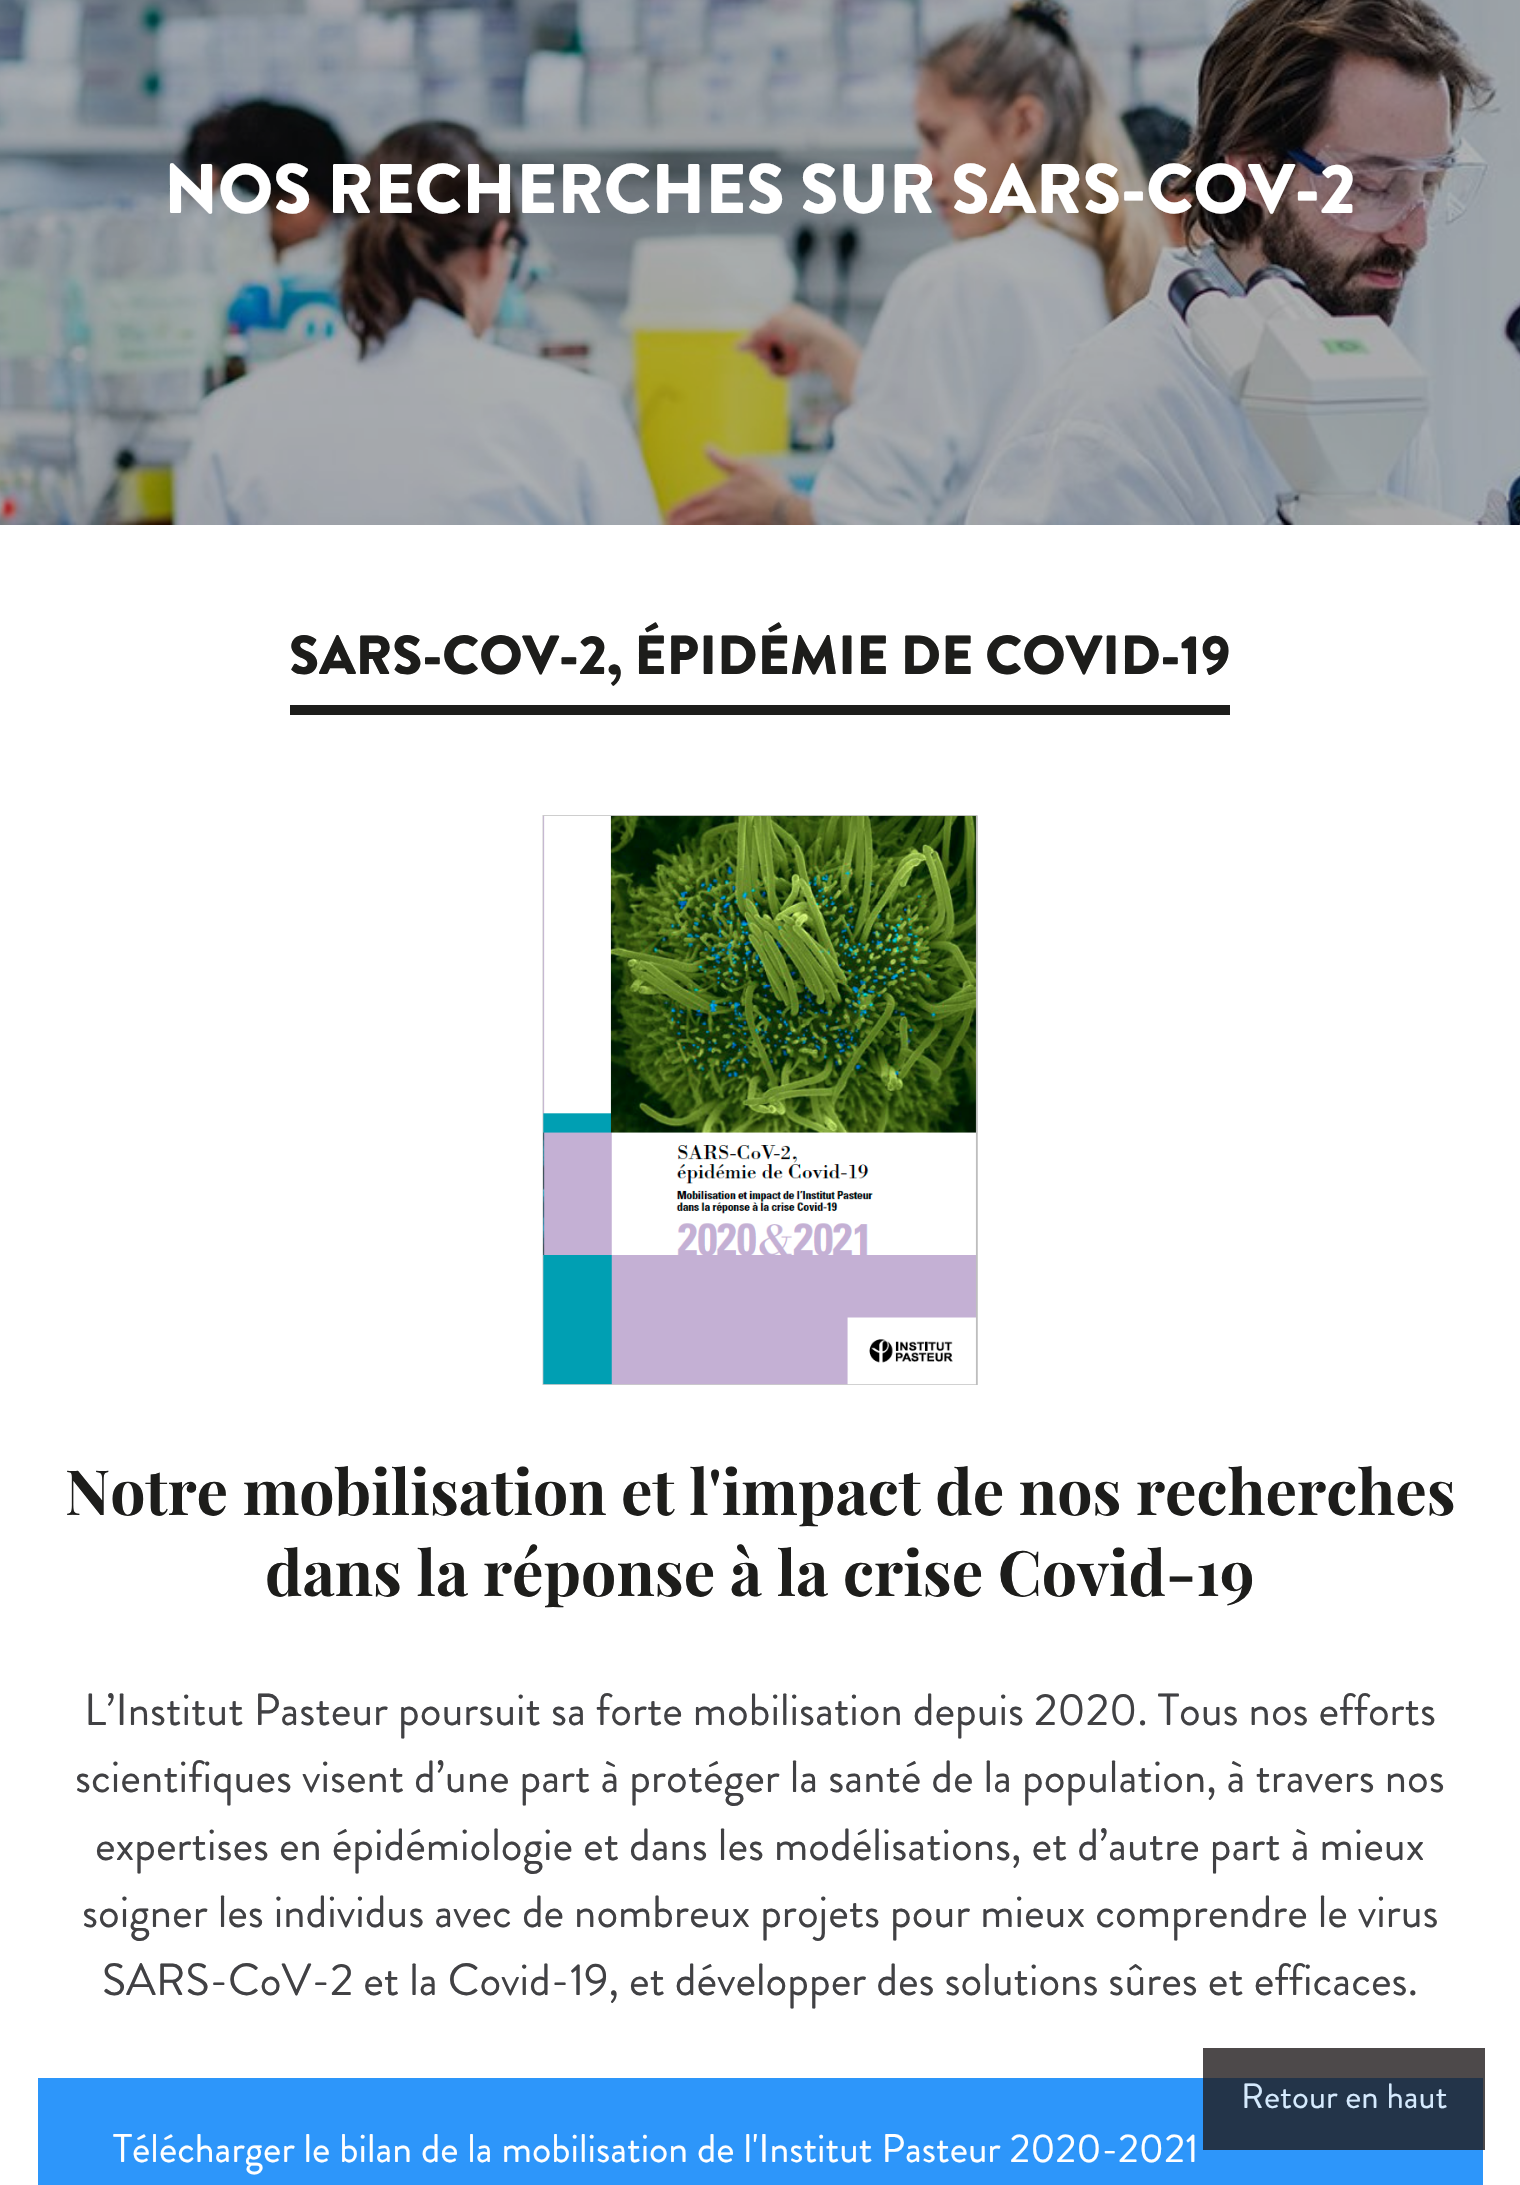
#include "include/core/SkBlurTypes.h"
#include "include/core/SkCanvas.h"
#include "include/core/SkData.h"
#include "include/core/SkFont.h"
#include "include/core/SkFontMgr.h"
#include "include/core/SkImage.h"
#include "include/core/SkMaskFilter.h"
#include "include/core/SkPaint.h"
#include "include/core/SkPathBuilder.h"
#include "include/core/SkTextBlob.h"
#include "include/effects/SkDashPathEffect.h"
#include "include/effects/SkGradientShader.h"
#include "include/utils/SkParsePath.h"

extern sk_sp<SkFontMgr> fontMgr;

void draw(SkCanvas* canvas) {
  SkPaint p;
  p.setAntiAlias(true);
  canvas->clear(SK_ColorWHITE);
  canvas->drawImageRect(SkImages::DeferredFromEncodedData(SkData::MakeFromFileName("images/1.png")), SkRect::MakeLTRB(0, 0, 1520, 525), SkSamplingOptions());
  p.setColor(SkColorSetRGB(29, 29, 27));
  canvas->drawRect(SkRect::MakeLTRB(290, 705, 1230, 715), p);
  canvas->drawImageRect(SkImages::DeferredFromEncodedData(SkData::MakeFromFileName("images/2.png")), SkRect::MakeLTRB(542, 815, 978, 1385), SkSamplingOptions());
  p.setColor(SkColorSetRGB(45, 150, 250));
  canvas->drawRect(SkRect::MakeLTRB(38, 2078, 1483, 2185), p);
  p.setColor(SkColorSetARGB(204, 33, 27, 29));
  canvas->drawRect(SkRect::MakeLTRB(1203, 2048, 1485, 2150), p);
  SkFont font1(fontMgr->matchFamilyStyle("Brandon Grotesque", SkFontStyle(900, SkFontStyle::kNormal_Width, SkFontStyle::kUpright_Slant)), 70);
  font1.setSubpixel(true);
  p.setColor(SK_ColorWHITE);
  canvas->drawString("NOS RECHERCHES SUR SARS-COV-2", 164, 213, font1, p);
  SkFont font2(fontMgr->matchFamilyStyle("Brandon Grotesque", SkFontStyle(900, SkFontStyle::kNormal_Width, SkFontStyle::kUpright_Slant)), 55);
  font2.setSubpixel(true);
  p.setColor(SkColorSetRGB(29, 29, 27));
  canvas->drawString("SARS-COV-2, ÉPIDÉMIE DE COVID-19", 289, 674, font2, p);
  SkFont font3(fontMgr->matchFamilyStyle("Playfair Display", SkFontStyle::Bold()), 62.5f);
  font3.setSubpixel(true);
  canvas->drawString("Notre mobilisation et l'impact de nos recherches", 65, 1515, font3, p);
  canvas->drawString("dans la réponse à la crise Covid-19", 265, 1596, font3, p);
  SkFont font4(fontMgr->matchFamilyStyle("Brandon Grotesque", SkFontStyle::Normal()), 45);
  font4.setSubpixel(true);
  p.setColor(SkColorSetRGB(65, 65, 68));
  canvas->drawString("L’Institut Pasteur poursuit sa forte mobilisation depuis 2020. Tous nos efforts", 84, 1725, font4, p);
  canvas->drawString("scientifiques visent d’une part à protéger la santé de la population, à travers nos", 75, 1792, font4, p);
  canvas->drawString("expertises en épidémiologie et dans les modélisations, et d’autre part à mieux", 95, 1860, font4, p);
  canvas->drawString("soigner les individus avec de nombreux projets pour mieux comprendre le virus", 82, 1927, font4, p);
  canvas->drawString("SARS-CoV-2 et la Covid-19, et développer des solutions sûres et efficaces.", 102, 1995, font4, p);
  SkFont font5(fontMgr->matchFamilyStyle("Brandon Grotesque", SkFontStyle::Normal()), 40);
  font5.setSubpixel(true);
  p.setColor(SK_ColorWHITE);
  canvas->drawString("Télécharger le bilan de la mobilisation de l'Institut Pasteur 2020-2021", 113, 2162, font5, p);
  SkFont font6(fontMgr->matchFamilyStyle("Brandon Grotesque", SkFontStyle::Normal()), 35);
  font6.setSubpixel(true);
  p.setColor(SkColorSetRGB(213, 234, 254));
  canvas->drawString("Retour en haut", 1241, 2108, font6, p);
}
